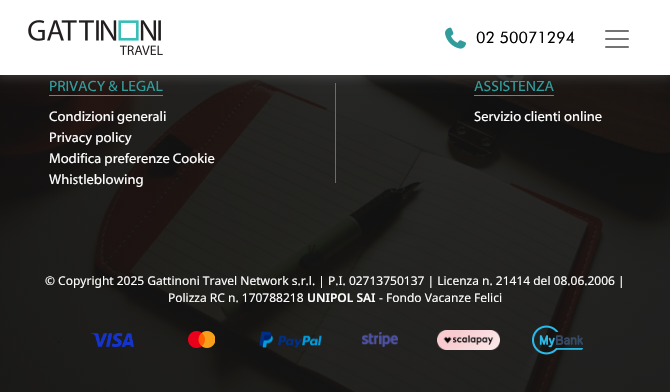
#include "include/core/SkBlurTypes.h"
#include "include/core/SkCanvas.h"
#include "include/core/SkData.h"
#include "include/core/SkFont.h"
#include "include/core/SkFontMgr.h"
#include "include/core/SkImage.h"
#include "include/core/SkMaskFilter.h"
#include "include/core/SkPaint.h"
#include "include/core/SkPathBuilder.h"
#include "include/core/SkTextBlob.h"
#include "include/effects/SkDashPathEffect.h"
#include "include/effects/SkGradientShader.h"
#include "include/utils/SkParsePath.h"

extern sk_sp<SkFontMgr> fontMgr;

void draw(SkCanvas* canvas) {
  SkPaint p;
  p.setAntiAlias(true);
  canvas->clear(SK_ColorWHITE);
  canvas->drawImageRect(SkImages::DeferredFromEncodedData(SkData::MakeFromFileName("images/4.png")), SkRect::MakeLTRB(0, 75, 670, 392), SkSamplingOptions());
  p.setColor(SkColorSetRGB(107, 109, 112));
  canvas->drawRect(SkRect::MakeLTRB(335, 83, 336, 183), p);
  p.setColor(SkColorSetARGB(84, 129, 129, 129));
  p.setMaskFilter(SkMaskFilter::MakeBlur(kNormal_SkBlurStyle, 5));
  canvas->drawRect(SkRect::MakeLTRB(-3, -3, 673, 78), p);
  p.setMaskFilter(nullptr);
  p.setColor(SK_ColorWHITE);
  canvas->drawRect(SkRect::MakeLTRB(0, 0, 670, 75), p);
  canvas->drawImageRect(SkImages::DeferredFromEncodedData(SkData::MakeFromFileName("images/1.png")), SkRect::MakeLTRB(28, 20, 163, 55), SkSamplingOptions());
  canvas->drawImageRect(SkImages::DeferredFromEncodedData(SkData::MakeFromFileName("images/2.png")), SkRect::MakeLTRB(445, 27, 466, 49), SkSamplingOptions());
  canvas->drawImageRect(SkImages::DeferredFromEncodedData(SkData::MakeFromFileName("images/3.png")), SkRect::MakeLTRB(605, 30, 629, 48), SkSamplingOptions());
  p.setColor(SkColorSetRGB(49, 156, 156));
  canvas->drawRect(SkRect::MakeLTRB(49, 95, 163, 96), p);
  canvas->drawRect(SkRect::MakeLTRB(474, 95, 554, 96), p);
  canvas->drawImageRect(SkImages::DeferredFromEncodedData(SkData::MakeFromFileName("images/5.png")), SkRect::MakeLTRB(91, 333, 134, 347), SkSamplingOptions());
  canvas->drawImageRect(SkImages::DeferredFromEncodedData(SkData::MakeFromFileName("images/6.png")), SkRect::MakeLTRB(188, 331, 215, 348), SkSamplingOptions());
  canvas->drawImageRect(SkImages::DeferredFromEncodedData(SkData::MakeFromFileName("images/7.png")), SkRect::MakeLTRB(259, 331, 322, 348), SkSamplingOptions());
  canvas->drawImageRect(SkImages::DeferredFromEncodedData(SkData::MakeFromFileName("images/8.png")), SkRect::MakeLTRB(362, 332, 398, 347), SkSamplingOptions());
  canvas->drawImageRect(SkImages::DeferredFromEncodedData(SkData::MakeFromFileName("images/9.png")), SkRect::MakeLTRB(437, 330, 500, 350), SkSamplingOptions());
  canvas->drawImageRect(SkImages::DeferredFromEncodedData(SkData::MakeFromFileName("images/10.png")), SkRect::MakeLTRB(532, 325, 583, 355), SkSamplingOptions());
  SkFont font1(fontMgr->matchFamilyStyle("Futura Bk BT", SkFontStyle::Normal()), 16);
  font1.setSubpixel(true);
  p.setColor(SK_ColorBLACK);
  canvas->drawString("02 50071294", 476, 43, font1, p);
  SkFont font2(fontMgr->matchFamilyStyle("Myriad", SkFontStyle::Normal()), 15);
  font2.setSubpixel(true);
  p.setColor(SkColorSetRGB(49, 156, 156));
  canvas->drawString("PRIVACY & LEGAL", 49, 91, font2, p);
  SkFont font3(fontMgr->matchFamilyStyle("Myriad", SkFontStyle::Normal()), 14);
  font3.setSubpixel(true);
  p.setColor(SK_ColorWHITE);
  canvas->drawString("Condizioni generali", 49, 121, font3, p);
  canvas->drawString("Privacy policy", 49, 142, font3, p);
  canvas->drawString("Modifica preferenze Cookie", 49, 163, font3, p);
  canvas->drawString("Whistleblowing", 49, 184, font3, p);
  p.setColor(SkColorSetRGB(49, 156, 156));
  canvas->drawString("ASSISTENZA", 474, 91, font2, p);
  p.setColor(SK_ColorWHITE);
  canvas->drawString("Servizio clienti online", 474, 121, font3, p);
  SkFont font4(fontMgr->matchFamilyStyle("Noto Sans", SkFontStyle::Normal()), 12);
  font4.setSubpixel(true);
  canvas->drawString("© Copyright 2025 Gattinoni Travel Network s.r.l. | P.I. 02713750137 | Licenza n. 21414 del 08.06.2006 |", 45, 285, font4, p);
  canvas->drawString("Polizza RC n. 170788218", 168, 302, font4, p);
  SkFont font5(fontMgr->matchFamilyStyle("Noto Sans", SkFontStyle(600, SkFontStyle::kNormal_Width, SkFontStyle::kUpright_Slant)), 12);
  font5.setSubpixel(true);
  canvas->drawString("UNIPOL SAI", 307, 302, font5, p);
  canvas->drawString("- Fondo Vacanze Felici", 379, 302, font4, p);
}
